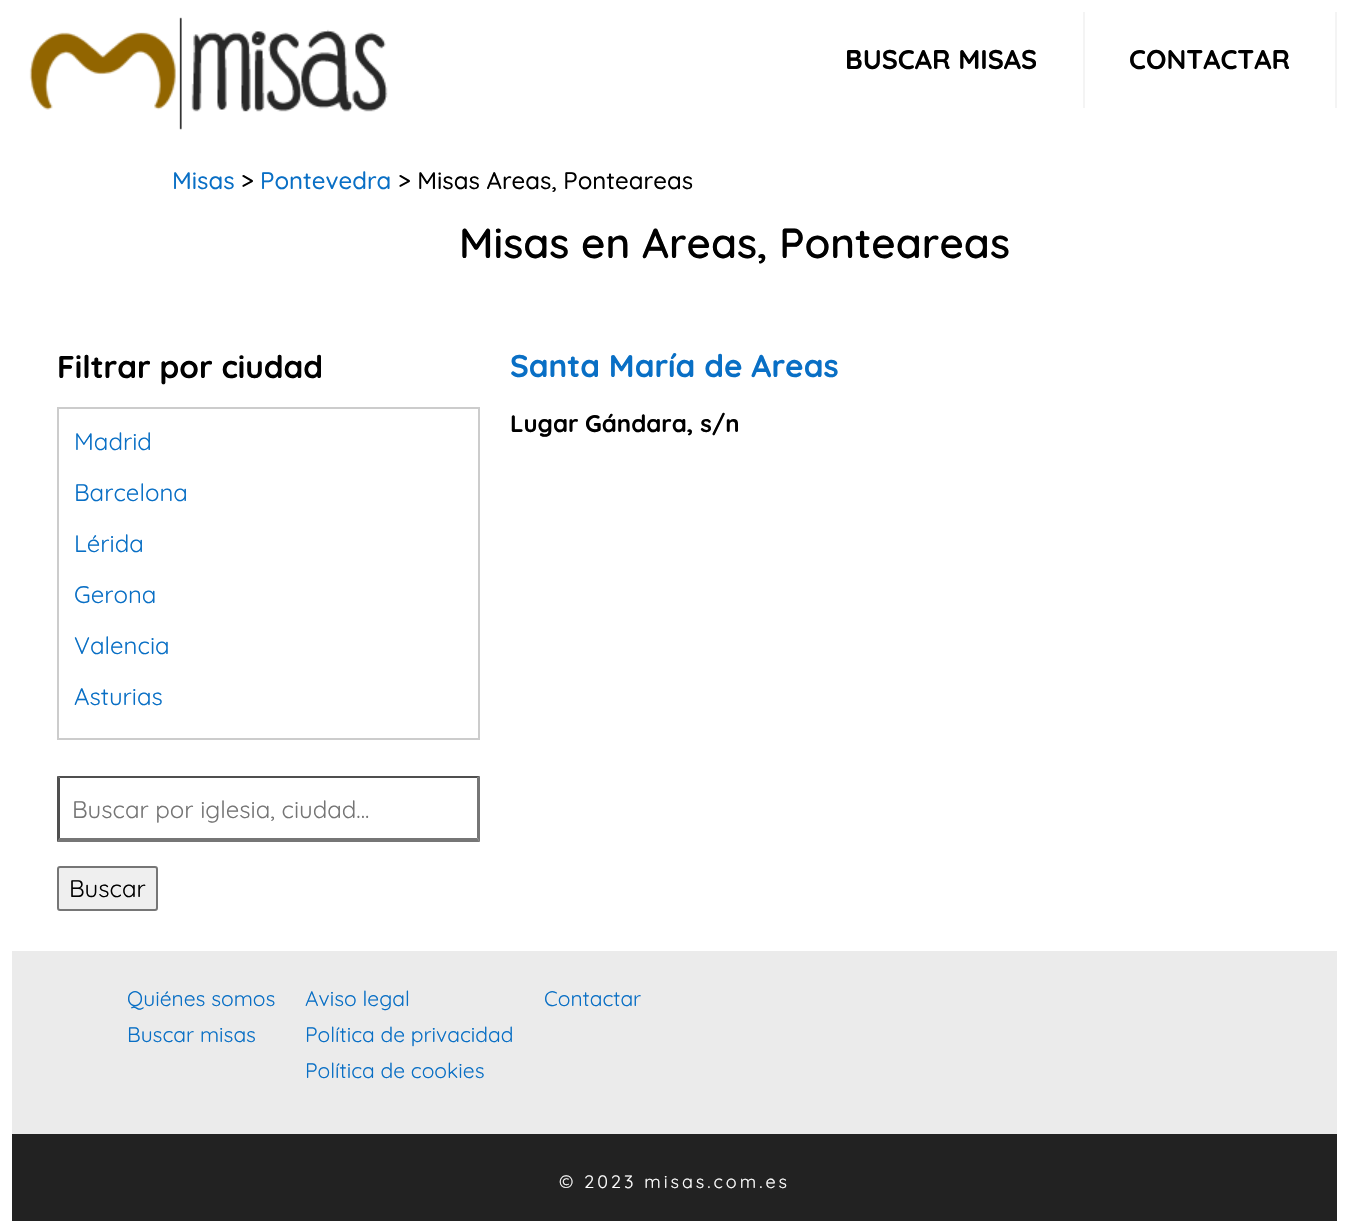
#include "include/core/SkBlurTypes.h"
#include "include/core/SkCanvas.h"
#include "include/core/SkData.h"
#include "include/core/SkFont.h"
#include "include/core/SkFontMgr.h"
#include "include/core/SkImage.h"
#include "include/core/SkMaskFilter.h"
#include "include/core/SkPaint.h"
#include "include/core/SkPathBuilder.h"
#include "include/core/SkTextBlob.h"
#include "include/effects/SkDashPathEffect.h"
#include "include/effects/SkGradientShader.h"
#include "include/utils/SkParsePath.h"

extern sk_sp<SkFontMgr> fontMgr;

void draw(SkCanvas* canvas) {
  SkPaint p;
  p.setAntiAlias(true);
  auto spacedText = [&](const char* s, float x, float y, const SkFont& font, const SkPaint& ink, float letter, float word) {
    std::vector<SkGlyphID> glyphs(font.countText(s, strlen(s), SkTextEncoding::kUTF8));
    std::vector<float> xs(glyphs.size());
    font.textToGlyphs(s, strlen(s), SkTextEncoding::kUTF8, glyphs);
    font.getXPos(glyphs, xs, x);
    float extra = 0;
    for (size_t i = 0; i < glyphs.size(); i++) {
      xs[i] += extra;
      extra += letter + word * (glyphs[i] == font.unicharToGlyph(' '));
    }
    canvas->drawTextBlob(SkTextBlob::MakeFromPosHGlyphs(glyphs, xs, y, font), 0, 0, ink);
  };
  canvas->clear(SK_ColorWHITE);
  canvas->drawImageRect(SkImages::DeferredFromEncodedData(SkData::MakeFromFileName("images/1.png")), SkRect::MakeLTRB(29, 17, 388, 130), SkSamplingOptions());
  p.setColor(SkColorSetRGB(244, 244, 244));
  canvas->drawRect(SkRect::MakeLTRB(1083, 12, 1085, 108), p);
  canvas->drawRect(SkRect::MakeLTRB(1335, 12, 1337, 108), p);
  p.setStyle(SkPaint::kStroke_Style);
  p.setStrokeWidth(2);
  p.setColor(SkColorSetRGB(204, 204, 204));
  canvas->drawRect(SkRect::MakeLTRB(58, 408, 479, 739), p);
  p.setStyle(SkPaint::kFill_Style);
  p.setColor(SkColorSetRGB(79, 79, 79));
  canvas->drawPath(SkPathBuilder().moveTo(57, 776).lineTo(480, 776).lineTo(477, 778).lineTo(60, 778).close().detach(), p);
  p.setColor(SkColorSetRGB(118, 118, 118));
  canvas->drawPath(SkPathBuilder().moveTo(480, 776).lineTo(480, 842).lineTo(477, 838).lineTo(477, 778).close().detach(), p);
  canvas->drawPath(SkPathBuilder().moveTo(480, 842).lineTo(57, 842).lineTo(60, 838).lineTo(477, 838).close().detach(), p);
  p.setColor(SkColorSetRGB(79, 79, 79));
  canvas->drawPath(SkPathBuilder().moveTo(57, 842).lineTo(57, 776).lineTo(60, 778).lineTo(60, 838).close().detach(), p);
  p.setColor(SkColorSetRGB(239, 239, 239));
  canvas->drawRoundRect(SkRect::MakeLTRB(58, 867, 157, 910), 2, 2, p);
  p.setStyle(SkPaint::kStroke_Style);
  p.setColor(SkColorSetRGB(118, 118, 118));
  canvas->drawRoundRect(SkRect::MakeLTRB(58, 867, 157, 910), 2, 2, p);
  p.setStyle(SkPaint::kFill_Style);
  p.setColor(SkColorSetRGB(235, 235, 235));
  canvas->drawRect(SkRect::MakeLTRB(12, 951, 1337, 1134), p);
  p.setColor(SkColorSetRGB(34, 34, 34));
  canvas->drawRect(SkRect::MakeLTRB(12, 1134, 1337, 1221), p);
  SkFont font1(fontMgr->matchFamilyStyle("Quicksand", SkFontStyle::Bold()), 27);
  font1.setSubpixel(true);
  p.setColor(SK_ColorBLACK);
  canvas->drawString("BUSCAR MISAS", 845, 69, font1, p);
  canvas->drawString("CONTACTAR", 1129, 69, font1, p);
  SkFont font2(fontMgr->matchFamilyStyle("Quicksand", SkFontStyle(500, SkFontStyle::kNormal_Width, SkFontStyle::kUpright_Slant)), 24);
  font2.setSubpixel(true);
  p.setColor(SkColorSetRGB(9, 111, 197));
  canvas->drawString("Misas", 172, 189, font2, p);
  p.setColor(SK_ColorBLACK);
  canvas->drawString(">", 241, 189, font2, p);
  p.setColor(SkColorSetRGB(9, 111, 197));
  canvas->drawString("Pontevedra", 260, 189, font2, p);
  p.setColor(SK_ColorBLACK);
  canvas->drawString("> Misas Areas, Ponteareas", 398, 189, font2, p);
  SkFont font3(fontMgr->matchFamilyStyle("Quicksand", SkFontStyle(600, SkFontStyle::kNormal_Width, SkFontStyle::kUpright_Slant)), 42);
  font3.setSubpixel(true);
  canvas->drawString("Misas en Areas, Ponteareas", 459, 258, font3, p);
  SkFont font4(fontMgr->matchFamilyStyle("Quicksand", SkFontStyle::Bold()), 31.5f);
  font4.setSubpixel(true);
  canvas->drawString("Filtrar por ciudad", 57, 378, font4, p);
  SkFont font5(fontMgr->matchFamilyStyle("Quicksand", SkFontStyle::Normal()), 24);
  font5.setSubpixel(true);
  p.setColor(SkColorSetRGB(9, 111, 197));
  canvas->drawString("Madrid", 74, 450, font5, p);
  canvas->drawString("Barcelona", 74, 501, font5, p);
  canvas->drawString("Lérida", 74, 552, font5, p);
  canvas->drawString("Gerona", 74, 603, font5, p);
  canvas->drawString("Valencia", 74, 654, font5, p);
  canvas->drawString("Asturias", 74, 705, font5, p);
  p.setColor(SkColorSetRGB(117, 117, 117));
  canvas->drawString("Buscar por iglesia, ciudad...", 72, 818, font5, p);
  p.setColor(SK_ColorBLACK);
  canvas->drawString("Buscar", 69, 897, font5, p);
  p.setColor(SkColorSetRGB(9, 111, 197));
  canvas->drawString("Santa María de Areas", 510, 377, font4, p);
  SkFont font6(fontMgr->matchFamilyStyle("Quicksand", SkFontStyle::Bold()), 24);
  font6.setSubpixel(true);
  p.setColor(SK_ColorBLACK);
  canvas->drawString("Lugar Gándara, s/n", 510, 432, font6, p);
  SkFont font7(fontMgr->matchFamilyStyle("Quicksand", SkFontStyle::Normal()), 21);
  font7.setSubpixel(true);
  p.setColor(SkColorSetRGB(9, 111, 197));
  canvas->drawString("Quiénes somos", 127, 1006, font7, p);
  canvas->drawString("Buscar misas", 127, 1042, font7, p);
  canvas->drawString("Aviso legal", 305, 1006, font7, p);
  canvas->drawString("Política de privacidad", 305, 1042, font7, p);
  canvas->drawString("Política de cookies", 305, 1078, font7, p);
  canvas->drawString("Contactar", 544, 1006, font7, p);
  SkFont font8(fontMgr->matchFamilyStyle("Quicksand", SkFontStyle::Normal()), 18);
  font8.setSubpixel(true);
  p.setColor(SK_ColorWHITE);
  spacedText("© 2023 misas.com.es", 559, 1188, font8, p, 3, 0);
}
